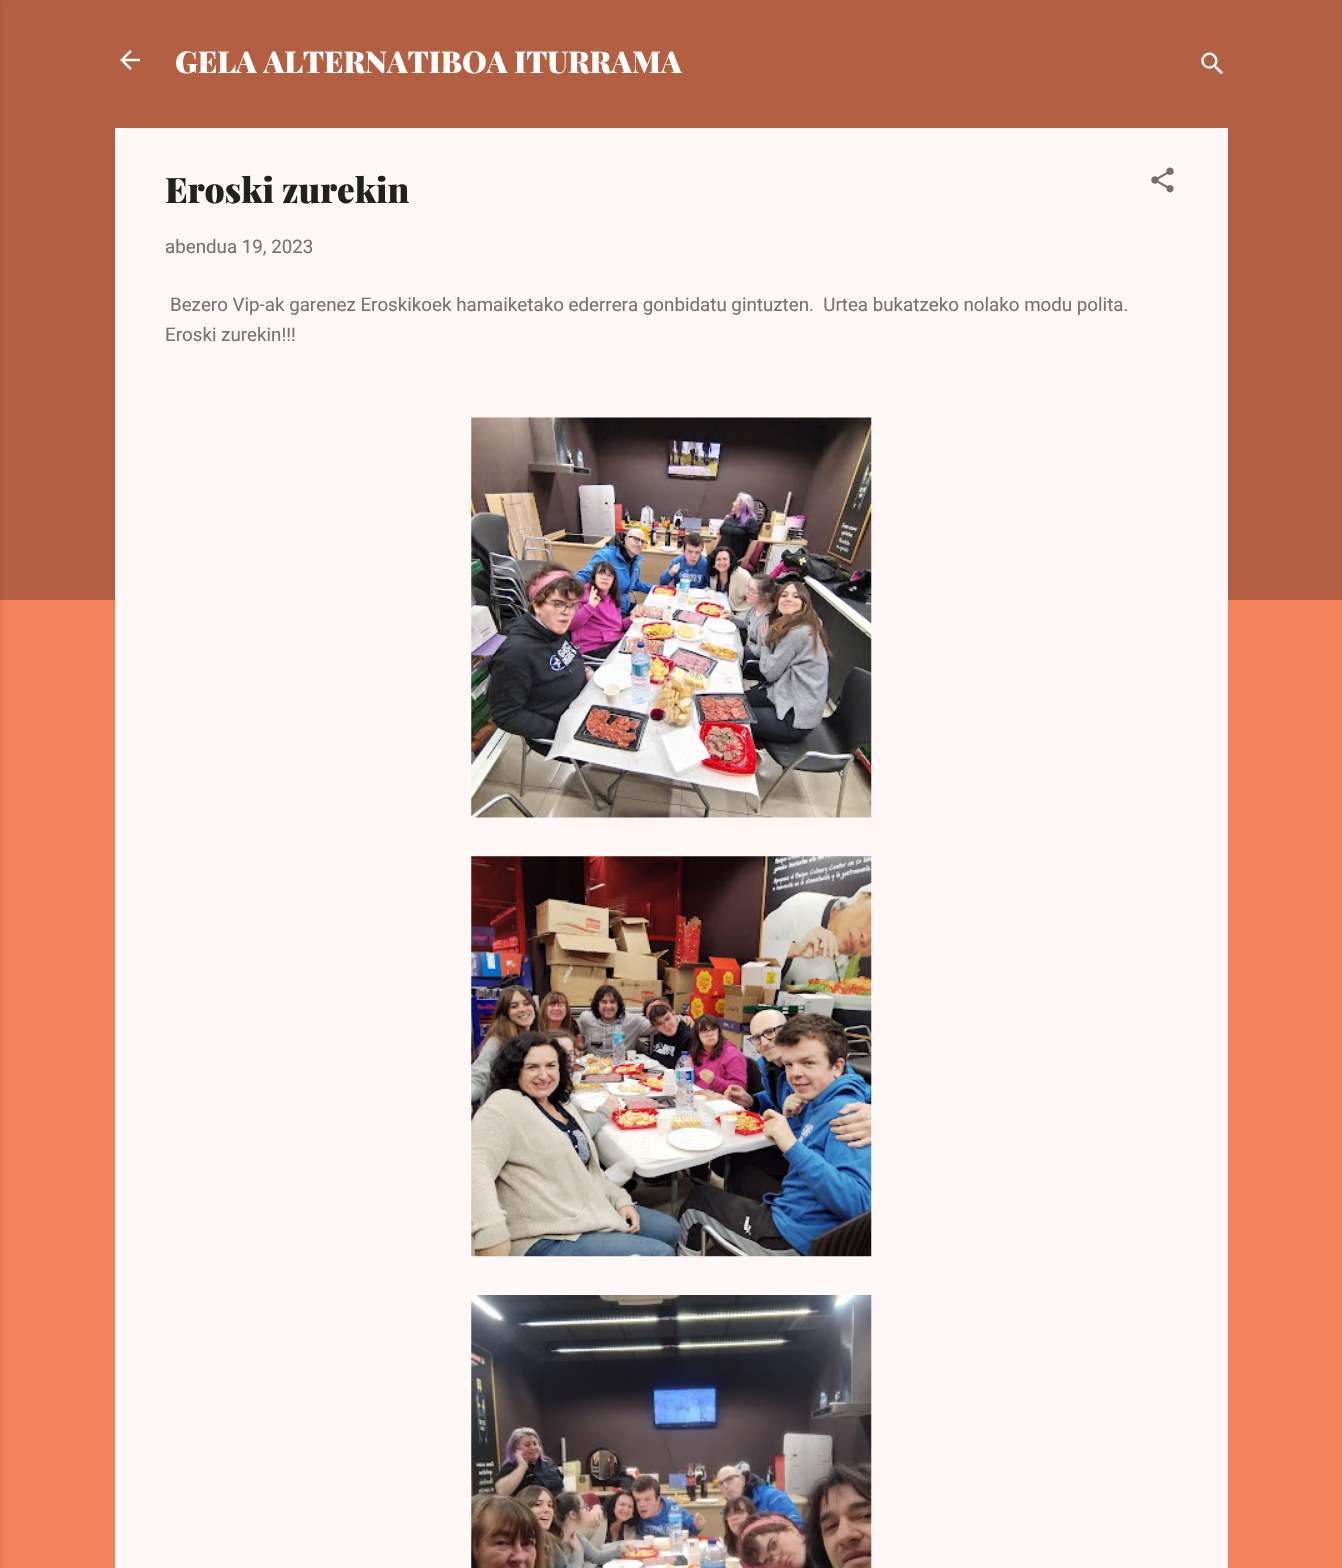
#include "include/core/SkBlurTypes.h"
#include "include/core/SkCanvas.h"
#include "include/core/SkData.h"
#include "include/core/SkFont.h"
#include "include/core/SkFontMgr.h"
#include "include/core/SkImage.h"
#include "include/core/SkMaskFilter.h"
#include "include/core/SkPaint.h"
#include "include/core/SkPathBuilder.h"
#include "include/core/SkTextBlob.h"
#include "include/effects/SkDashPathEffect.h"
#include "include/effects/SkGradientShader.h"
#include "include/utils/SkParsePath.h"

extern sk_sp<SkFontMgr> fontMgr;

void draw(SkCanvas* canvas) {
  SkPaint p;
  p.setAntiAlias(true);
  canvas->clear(SkColorSetRGB(242, 130, 90));
  p.setColor(SkColorSetRGB(178, 95, 66));
  canvas->drawRect(SkRect::MakeLTRB(0, 0, 1342, 600), p);
  p.setColor(SkColorSetARGB(26, 0, 0, 0));
  p.setMaskFilter(SkMaskFilter::MakeBlur(kNormal_SkBlurStyle, 2));
  canvas->drawRect(SkRect::MakeLTRB(-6, 1, 1, 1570), p);
  p.setMaskFilter(nullptr);
  canvas->drawImageRect(SkImages::DeferredFromEncodedData(SkData::MakeFromFileName("images/1.png")), SkRect::MakeLTRB(120, 50, 140, 70), SkSamplingOptions());
  canvas->drawImageRect(SkImages::DeferredFromEncodedData(SkData::MakeFromFileName("images/2.png")), SkRect::MakeLTRB(1201, 52, 1223, 75), SkSamplingOptions());
  p.setColor(SkColorSetRGB(255, 248, 246));
  canvas->drawRect(SkRect::MakeLTRB(115, 128, 1228, 1568), p);
  canvas->drawImageRect(SkImages::DeferredFromEncodedData(SkData::MakeFromFileName("images/3.png")), SkRect::MakeLTRB(1151, 167, 1174, 193), SkSamplingOptions());
  canvas->drawImageRect(SkImages::DeferredFromEncodedData(SkData::MakeFromFileName("images/4.png")), SkRect::MakeLTRB(471, 417, 872, 818), SkSamplingOptions());
  canvas->drawImageRect(SkImages::DeferredFromEncodedData(SkData::MakeFromFileName("images/5.png")), SkRect::MakeLTRB(471, 856, 872, 1257), SkSamplingOptions());
  canvas->drawImageRect(SkImages::DeferredFromEncodedData(SkData::MakeFromFileName("images/6.png")), SkRect::MakeLTRB(471, 1295, 872, 1568), SkSamplingOptions());
  SkFont font1(fontMgr->matchFamilyStyle("Playfair Display", SkFontStyle(900, SkFontStyle::kNormal_Width, SkFontStyle::kUpright_Slant)), 30);
  font1.setSubpixel(true);
  p.setColor(SK_ColorWHITE);
  canvas->drawString("GELA ALTERNATIBOA ITURRAMA", 175, 73, font1, p);
  SkFont font2(fontMgr->matchFamilyStyle("Playfair Display", SkFontStyle(900, SkFontStyle::kNormal_Width, SkFontStyle::kUpright_Slant)), 35);
  font2.setSubpixel(true);
  p.setColor(SkColorSetRGB(33, 33, 33));
  canvas->drawString("Eroski zurekin", 165, 203, font2, p);
  SkFont font3(fontMgr->matchFamilyStyle("Roboto", SkFontStyle::Normal()), 18.75f);
  font3.setSubpixel(true);
  p.setColor(SkColorSetRGB(117, 114, 113));
  canvas->drawString("abendua 19, 2023", 165, 253, font3, p);
  canvas->drawString("Bezero Vip-ak garenez Eroskikoek hamaiketako ederrera gonbidatu gintuzten.  Urtea bukatzeko nolako modu polita.", 170, 311, font3, p);
  canvas->drawString("Eroski zurekin!!!", 165, 341, font3, p);
}
